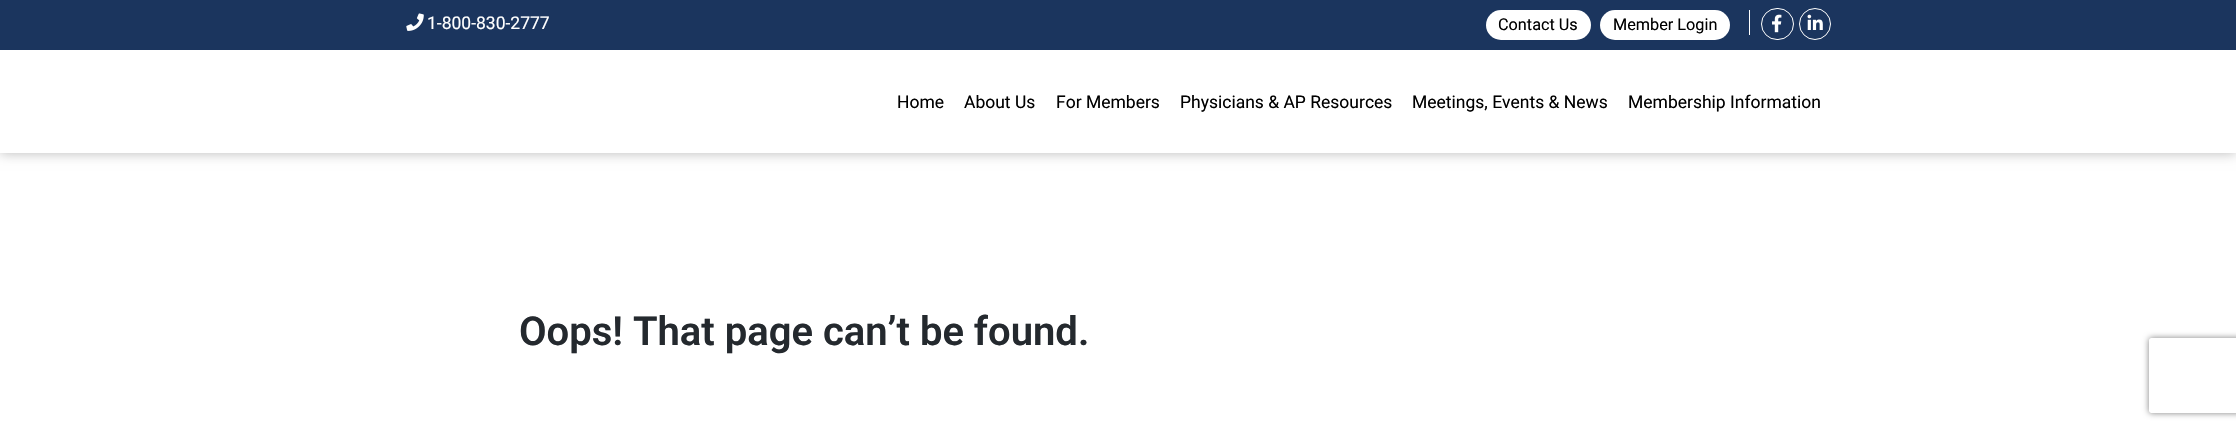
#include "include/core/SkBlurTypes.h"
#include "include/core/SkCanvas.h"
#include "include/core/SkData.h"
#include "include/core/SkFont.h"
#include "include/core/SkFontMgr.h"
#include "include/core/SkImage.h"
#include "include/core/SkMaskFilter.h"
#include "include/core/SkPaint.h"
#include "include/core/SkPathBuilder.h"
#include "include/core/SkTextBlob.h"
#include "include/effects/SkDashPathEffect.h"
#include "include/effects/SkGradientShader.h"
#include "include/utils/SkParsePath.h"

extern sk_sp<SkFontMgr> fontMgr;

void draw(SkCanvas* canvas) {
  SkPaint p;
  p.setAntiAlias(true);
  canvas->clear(SK_ColorWHITE);
  p.setColor(SkColorSetRGB(185, 185, 185));
  p.setMaskFilter(SkMaskFilter::MakeBlur(kNormal_SkBlurStyle, 6));
  canvas->drawRect(SkRect::MakeLTRB(0, 50, 2236, 153), p);
  p.setMaskFilter(nullptr);
  p.setColor(SkColorSetRGB(27, 53, 94));
  canvas->drawRect(SkRect::MakeLTRB(0, 0, 2236, 50), p);
  canvas->drawImageRect(SkImages::DeferredFromEncodedData(SkData::MakeFromFileName("images/1.png")), SkRect::MakeLTRB(406, 13, 424, 31), SkSamplingOptions());
  p.setColor(SK_ColorWHITE);
  canvas->drawRoundRect(SkRect::MakeLTRB(1486, 10, 1591, 40), 15, 15, p);
  canvas->drawRoundRect(SkRect::MakeLTRB(1600, 10, 1730, 40), 15, 15, p);
  p.setStyle(SkPaint::kStroke_Style);
  p.setStrokeWidth(1);
  canvas->drawRoundRect(SkRect::MakeLTRB(1761.5f, 8.5f, 1793.5f, 39.5f), 15.5f, 15.5f, p);
  p.setStyle(SkPaint::kFill_Style);
  canvas->drawRect(SkRect::MakeLTRB(1749, 10, 1750, 35), p);
  canvas->drawImageRect(SkImages::DeferredFromEncodedData(SkData::MakeFromFileName("images/2.png")), SkRect::MakeLTRB(1772, 14, 1782, 33), SkSamplingOptions());
  p.setStyle(SkPaint::kStroke_Style);
  canvas->drawCircle(1815, 24, 15.5f, p);
  canvas->drawImageRect(SkImages::DeferredFromEncodedData(SkData::MakeFromFileName("images/3.png")), SkRect::MakeLTRB(1807, 14, 1823, 30), SkSamplingOptions());
  p.setStyle(SkPaint::kFill_Style);
  canvas->drawRect(SkRect::MakeLTRB(0, 50, 2236, 153), p);
  canvas->save();
  canvas->clipPath(SkPathBuilder(SkPathFillType::kEvenOdd).moveTo(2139, 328).lineTo(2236, 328).lineTo(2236, 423).lineTo(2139, 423).close().moveTo(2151.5f, 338).lineTo(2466.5f, 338).cubicTo(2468, 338, 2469, 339, 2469, 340.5f).lineTo(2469, 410.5f).cubicTo(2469, 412, 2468, 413, 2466.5f, 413).lineTo(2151.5f, 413).cubicTo(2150, 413, 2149, 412, 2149, 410.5f).lineTo(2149, 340.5f).cubicTo(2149, 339, 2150, 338, 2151.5f, 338).close().detach(), true);
  p.setColor(SkColorSetRGB(128, 128, 128));
  p.setMaskFilter(SkMaskFilter::MakeBlur(kNormal_SkBlurStyle, 3));
  canvas->drawRoundRect(SkRect::MakeLTRB(2149, 338, 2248, 413), 2.5f, 2.5f, p);
  p.setMaskFilter(nullptr);
  canvas->restore();
  SkFont font1(fontMgr->matchFamilyStyle("Roboto", SkFontStyle::Normal()), 17.5f);
  font1.setSubpixel(true);
  p.setColor(SK_ColorWHITE);
  canvas->drawString("1-800-830-2777", 427, 29, font1, p);
  SkFont font2(fontMgr->matchFamilyStyle("Roboto", SkFontStyle::Normal()), 16.25f);
  font2.setSubpixel(true);
  p.setColor(SK_ColorBLACK);
  canvas->drawString("Contact Us", 1498, 30, font2, p);
  canvas->drawString("Member Login", 1613, 30, font2, p);
  canvas->drawString("Home", 897, 108, font1, p);
  canvas->drawString("About Us", 964, 108, font1, p);
  canvas->drawString("For Members", 1056, 108, font1, p);
  canvas->drawString("Physicians & AP Resources", 1180, 108, font1, p);
  canvas->drawString("Meetings, Events & News", 1412, 108, font1, p);
  canvas->drawString("Membership Information", 1628, 108, font1, p);
  SkFont font3(fontMgr->matchFamilyStyle("Roboto", SkFontStyle(600, SkFontStyle::kNormal_Width, SkFontStyle::kUpright_Slant)), 40);
  font3.setSubpixel(true);
  p.setColor(SkColorSetRGB(36, 41, 46));
  canvas->drawString("Oops! That page can’t be found.", 519, 345, font3, p);
}
